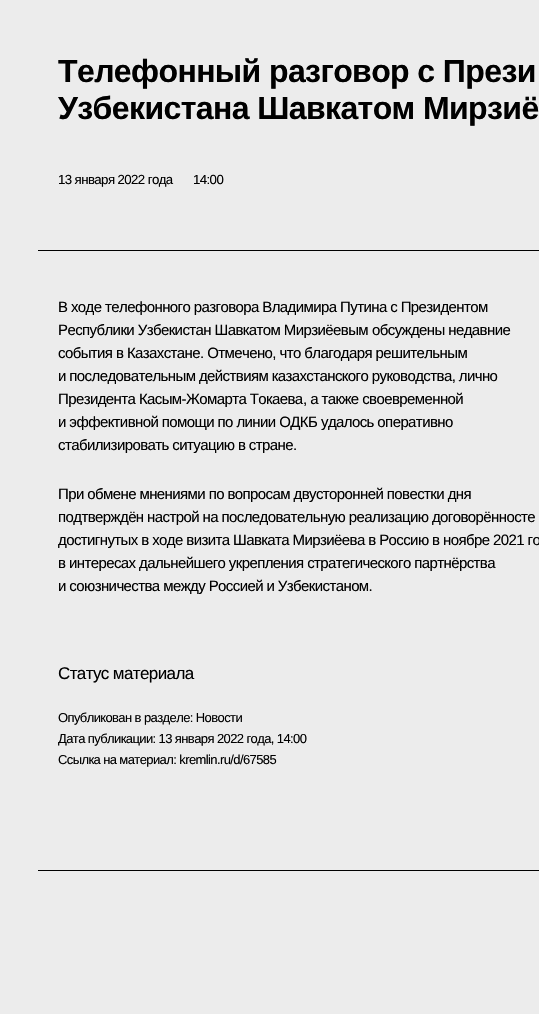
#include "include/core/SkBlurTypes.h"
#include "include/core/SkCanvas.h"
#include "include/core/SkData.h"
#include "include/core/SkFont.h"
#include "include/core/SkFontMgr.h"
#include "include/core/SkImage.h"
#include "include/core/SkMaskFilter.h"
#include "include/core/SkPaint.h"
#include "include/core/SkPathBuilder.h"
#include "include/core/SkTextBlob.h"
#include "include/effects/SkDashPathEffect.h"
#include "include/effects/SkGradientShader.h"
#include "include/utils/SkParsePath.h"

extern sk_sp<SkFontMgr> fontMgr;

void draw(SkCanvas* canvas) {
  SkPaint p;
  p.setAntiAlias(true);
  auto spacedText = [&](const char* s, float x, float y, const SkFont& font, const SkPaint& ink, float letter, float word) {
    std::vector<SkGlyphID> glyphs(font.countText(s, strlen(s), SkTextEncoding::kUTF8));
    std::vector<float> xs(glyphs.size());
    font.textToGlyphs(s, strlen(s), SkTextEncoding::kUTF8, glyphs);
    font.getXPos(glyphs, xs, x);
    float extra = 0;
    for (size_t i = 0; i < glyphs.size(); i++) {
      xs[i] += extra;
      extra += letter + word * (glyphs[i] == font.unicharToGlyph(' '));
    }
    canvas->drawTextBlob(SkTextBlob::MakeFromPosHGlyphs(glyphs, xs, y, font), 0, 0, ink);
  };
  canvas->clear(SkColorSetRGB(236, 236, 236));
  p.setColor(SK_ColorBLACK);
  canvas->drawRect(SkRect::MakeLTRB(38, 870, 539, 871), p);
  canvas->drawRect(SkRect::MakeLTRB(38, 250, 539, 251), p);
  SkFont font1(fontMgr->matchFamilyStyle("Liberation Sans", SkFontStyle::Bold()), 32);
  font1.setSubpixel(true);
  spacedText("Телефонный разговор с Прези", 58, 82, font1, p, -0.6f, 0);
  spacedText("Узбекистана Шавкатом Мирзиё", 58, 119, font1, p, -0.6f, 0);
  SkFont font2(fontMgr->matchFamilyStyle("Liberation Sans", SkFontStyle::Normal()), 13.25f);
  font2.setSubpixel(true);
  spacedText("13 января 2022 года", 58, 184, font2, p, -0.6f, 0);
  spacedText("14:00", 193, 184, font2, p, -0.6f, 0);
  SkFont font3(fontMgr->matchFamilyStyle("Liberation Sans", SkFontStyle::Normal()), 15);
  font3.setSubpixel(true);
  spacedText("В ходе телефонного разговора Владимира Путина с Президентом", 58, 312, font3, p, -0.6f, 0);
  spacedText("Республики Узбекистан Шавкатом Мирзиёевым", 58, 335, font3, p, -0.6f, 0);
  spacedText("обсуждены недавние", 372, 335, font3, p, -0.6f, 0);
  spacedText("события в Казахстане. Отмечено, что благодаря решительным", 58, 358, font3, p, -0.6f, 0);
  spacedText("и последовательным действиям казахстанского руководства, лично", 58, 381, font3, p, -0.6f, 0);
  spacedText("Президента Касым-Жомарта Токаева", 58, 404, font3, p, -0.6f, 0);
  spacedText(", а также своевременной", 303, 404, font3, p, -0.6f, 0);
  spacedText("и эффективной помощи по линии ОДКБ", 58, 427, font3, p, -0.6f, 0);
  spacedText("удалось оперативно", 321, 427, font3, p, -0.6f, 0);
  spacedText("стабилизировать ситуацию в стране.", 58, 450, font3, p, -0.6f, 0);
  spacedText("При обмене мнениями по вопросам двусторонней повестки дня", 58, 499, font3, p, -0.6f, 0);
  spacedText("подтверждён настрой на последовательную реализацию договорённосте", 58, 522, font3, p, -0.6f, 0);
  spacedText("достигнутых в ходе визита Шавката Мирзиёева в Россию в ноябре 2021 го", 58, 545, font3, p, -0.6f, 0);
  spacedText("в интересах дальнейшего укрепления стратегического партнёрства", 58, 568, font3, p, -0.6f, 0);
  spacedText("и союзничества между Россией и Узбекистаном.", 58, 591, font3, p, -0.6f, 0);
  SkFont font4(fontMgr->matchFamilyStyle("Liberation Sans", SkFontStyle::Normal()), 17);
  font4.setSubpixel(true);
  spacedText("Статус материала", 58, 679, font4, p, -0.6f, 0);
  SkFont font5(fontMgr->matchFamilyStyle("Liberation Sans", SkFontStyle::Normal()), 13);
  font5.setSubpixel(true);
  spacedText("Опубликован в разделе: Новости", 58, 722, font5, p, -0.6f, 0);
  spacedText("Дата публикации: 13 января 2022 года, 14:00", 58, 743, font5, p, -0.6f, 0);
  spacedText("Ссылка на материал: kremlin.ru/d/67585", 58, 764, font5, p, -0.6f, 0);
}
